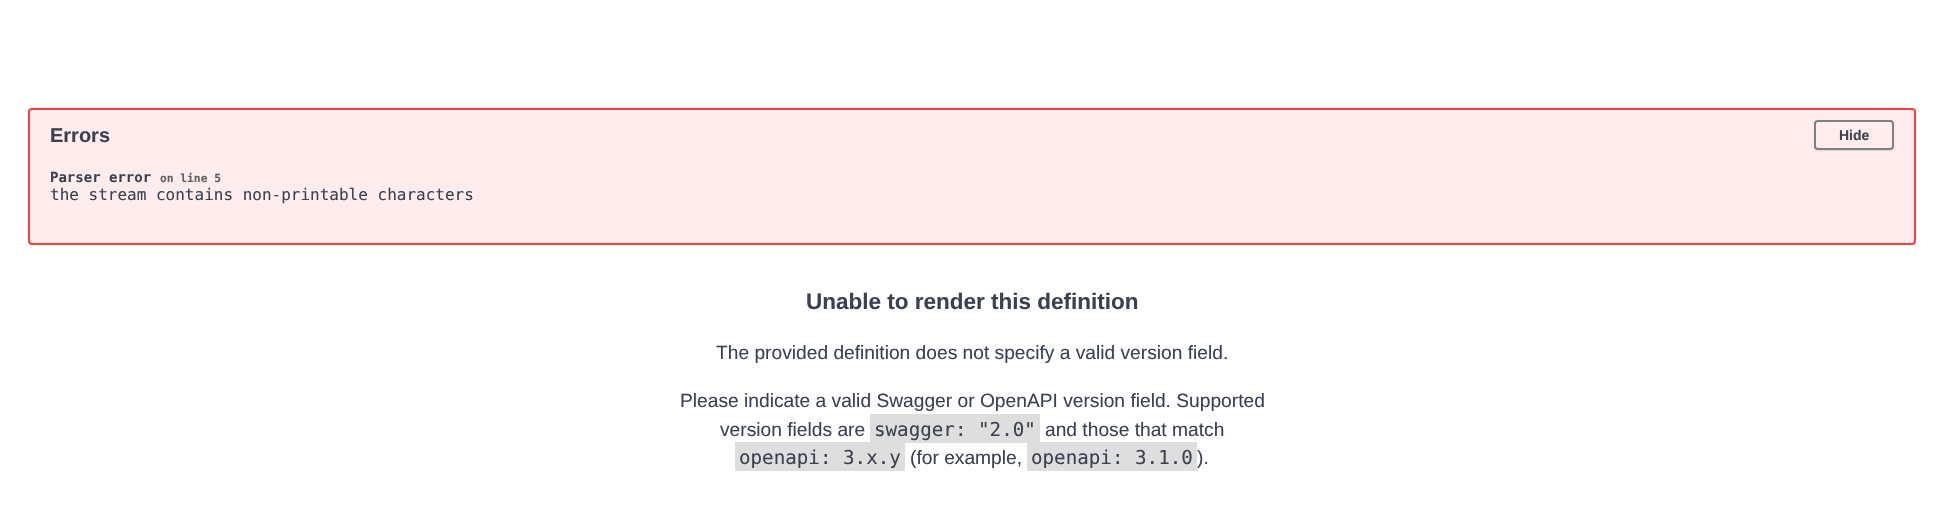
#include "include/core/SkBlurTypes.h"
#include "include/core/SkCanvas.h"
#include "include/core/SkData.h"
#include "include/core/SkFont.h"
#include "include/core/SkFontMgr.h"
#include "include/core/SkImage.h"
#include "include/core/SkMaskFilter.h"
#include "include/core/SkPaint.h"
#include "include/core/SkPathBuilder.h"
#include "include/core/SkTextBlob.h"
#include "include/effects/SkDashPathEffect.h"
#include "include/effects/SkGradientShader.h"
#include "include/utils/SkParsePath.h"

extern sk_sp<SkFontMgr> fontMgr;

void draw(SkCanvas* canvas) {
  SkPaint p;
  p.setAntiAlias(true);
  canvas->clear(SK_ColorWHITE);
  p.setColor(SkColorSetRGB(255, 236, 236));
  canvas->drawRoundRect(SkRect::MakeLTRB(29, 109, 1915, 244), 3, 3, p);
  p.setStyle(SkPaint::kStroke_Style);
  p.setStrokeWidth(2);
  p.setColor(SkColorSetRGB(249, 62, 62));
  canvas->drawRoundRect(SkRect::MakeLTRB(29, 109, 1915, 244), 3, 3, p);
  canvas->save();
  canvas->clipPath(SkPathBuilder(SkPathFillType::kEvenOdd).moveTo(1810, 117).lineTo(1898, 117).lineTo(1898, 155).lineTo(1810, 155).close().moveTo(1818, 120).lineTo(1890, 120).cubicTo(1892, 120, 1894, 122, 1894, 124).lineTo(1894, 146).cubicTo(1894, 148, 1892, 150, 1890, 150).lineTo(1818, 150).cubicTo(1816, 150, 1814, 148, 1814, 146).lineTo(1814, 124).cubicTo(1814, 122, 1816, 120, 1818, 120).close().detach(), true);
  p.setStyle(SkPaint::kFill_Style);
  p.setColor(SkColorSetARGB(26, 0, 0, 0));
  p.setMaskFilter(SkMaskFilter::MakeBlur(kNormal_SkBlurStyle, 1));
  canvas->drawRoundRect(SkRect::MakeLTRB(1814, 121, 1894, 151), 4, 4, p);
  p.setMaskFilter(nullptr);
  canvas->restore();
  p.setStyle(SkPaint::kStroke_Style);
  p.setColor(SkColorSetRGB(128, 128, 128));
  canvas->drawRoundRect(SkRect::MakeLTRB(1815, 121, 1893, 149), 3, 3, p);
  p.setStyle(SkPaint::kFill_Style);
  p.setColor(SkColorSetRGB(222, 222, 222));
  canvas->drawRect(SkRect::MakeLTRB(870, 414, 1040, 443), p);
  canvas->drawRect(SkRect::MakeLTRB(735, 442, 905, 471), p);
  canvas->drawRect(SkRect::MakeLTRB(1027, 442, 1197, 471), p);
  SkFont font1(fontMgr->matchFamilyStyle("Liberation Sans", SkFontStyle::Bold()), 20);
  font1.setSubpixel(true);
  p.setColor(SkColorSetRGB(59, 65, 81));
  canvas->drawString("Errors", 50, 142, font1, p);
  SkFont font2(fontMgr->matchFamilyStyle("Liberation Sans", SkFontStyle::Bold()), 14);
  font2.setSubpixel(true);
  canvas->drawString("Hide", 1839, 140, font2, p);
  SkFont font3(fontMgr->matchFamilyStyle("DejaVu Sans Mono", SkFontStyle::Bold()), 14);
  font3.setSubpixel(true);
  canvas->drawString("Parser error", 50, 182, font3, p);
  SkFont font4(fontMgr->matchFamilyStyle("DejaVu Sans Mono", SkFontStyle::Bold()), 11.25f);
  font4.setSubpixel(true);
  p.setColor(SkColorSetRGB(96, 96, 96));
  canvas->drawString("on line 5", 160, 182, font4, p);
  SkFont font5(fontMgr->matchFamilyStyle("DejaVu Sans Mono", SkFontStyle::Normal()), 16);
  font5.setSubpixel(true);
  p.setColor(SkColorSetRGB(59, 65, 81));
  canvas->drawString("the stream contains non-printable characters", 50, 200, font5, p);
  SkFont font6(fontMgr->matchFamilyStyle("Liberation Sans", SkFontStyle::Bold()), 22.5f);
  font6.setSubpixel(true);
  canvas->drawString("Unable to render this definition", 806, 309, font6, p);
  SkFont font7(fontMgr->matchFamilyStyle("Liberation Sans", SkFontStyle::Normal()), 19.2f);
  font7.setSubpixel(true);
  canvas->drawString("The provided definition does not specify a valid version field.", 716, 359, font7, p);
  canvas->drawString("Please indicate a valid Swagger or OpenAPI version field. Supported", 680, 407, font7, p);
  canvas->drawString("version fields are", 720, 436, font7, p);
  SkFont font8(fontMgr->matchFamilyStyle("DejaVu Sans Mono", SkFontStyle::Normal()), 19.2f);
  font8.setSubpixel(true);
  canvas->drawString("swagger: \"2.0\"", 874, 436, font8, p);
  canvas->drawString("and those that match", 1045, 436, font7, p);
  canvas->drawString("openapi: 3.x.y", 739, 464, font8, p);
  canvas->drawString("(for example,", 910, 464, font7, p);
  canvas->drawString("openapi: 3.1.0", 1031, 464, font8, p);
  canvas->drawString(").", 1197, 464, font7, p);
}
